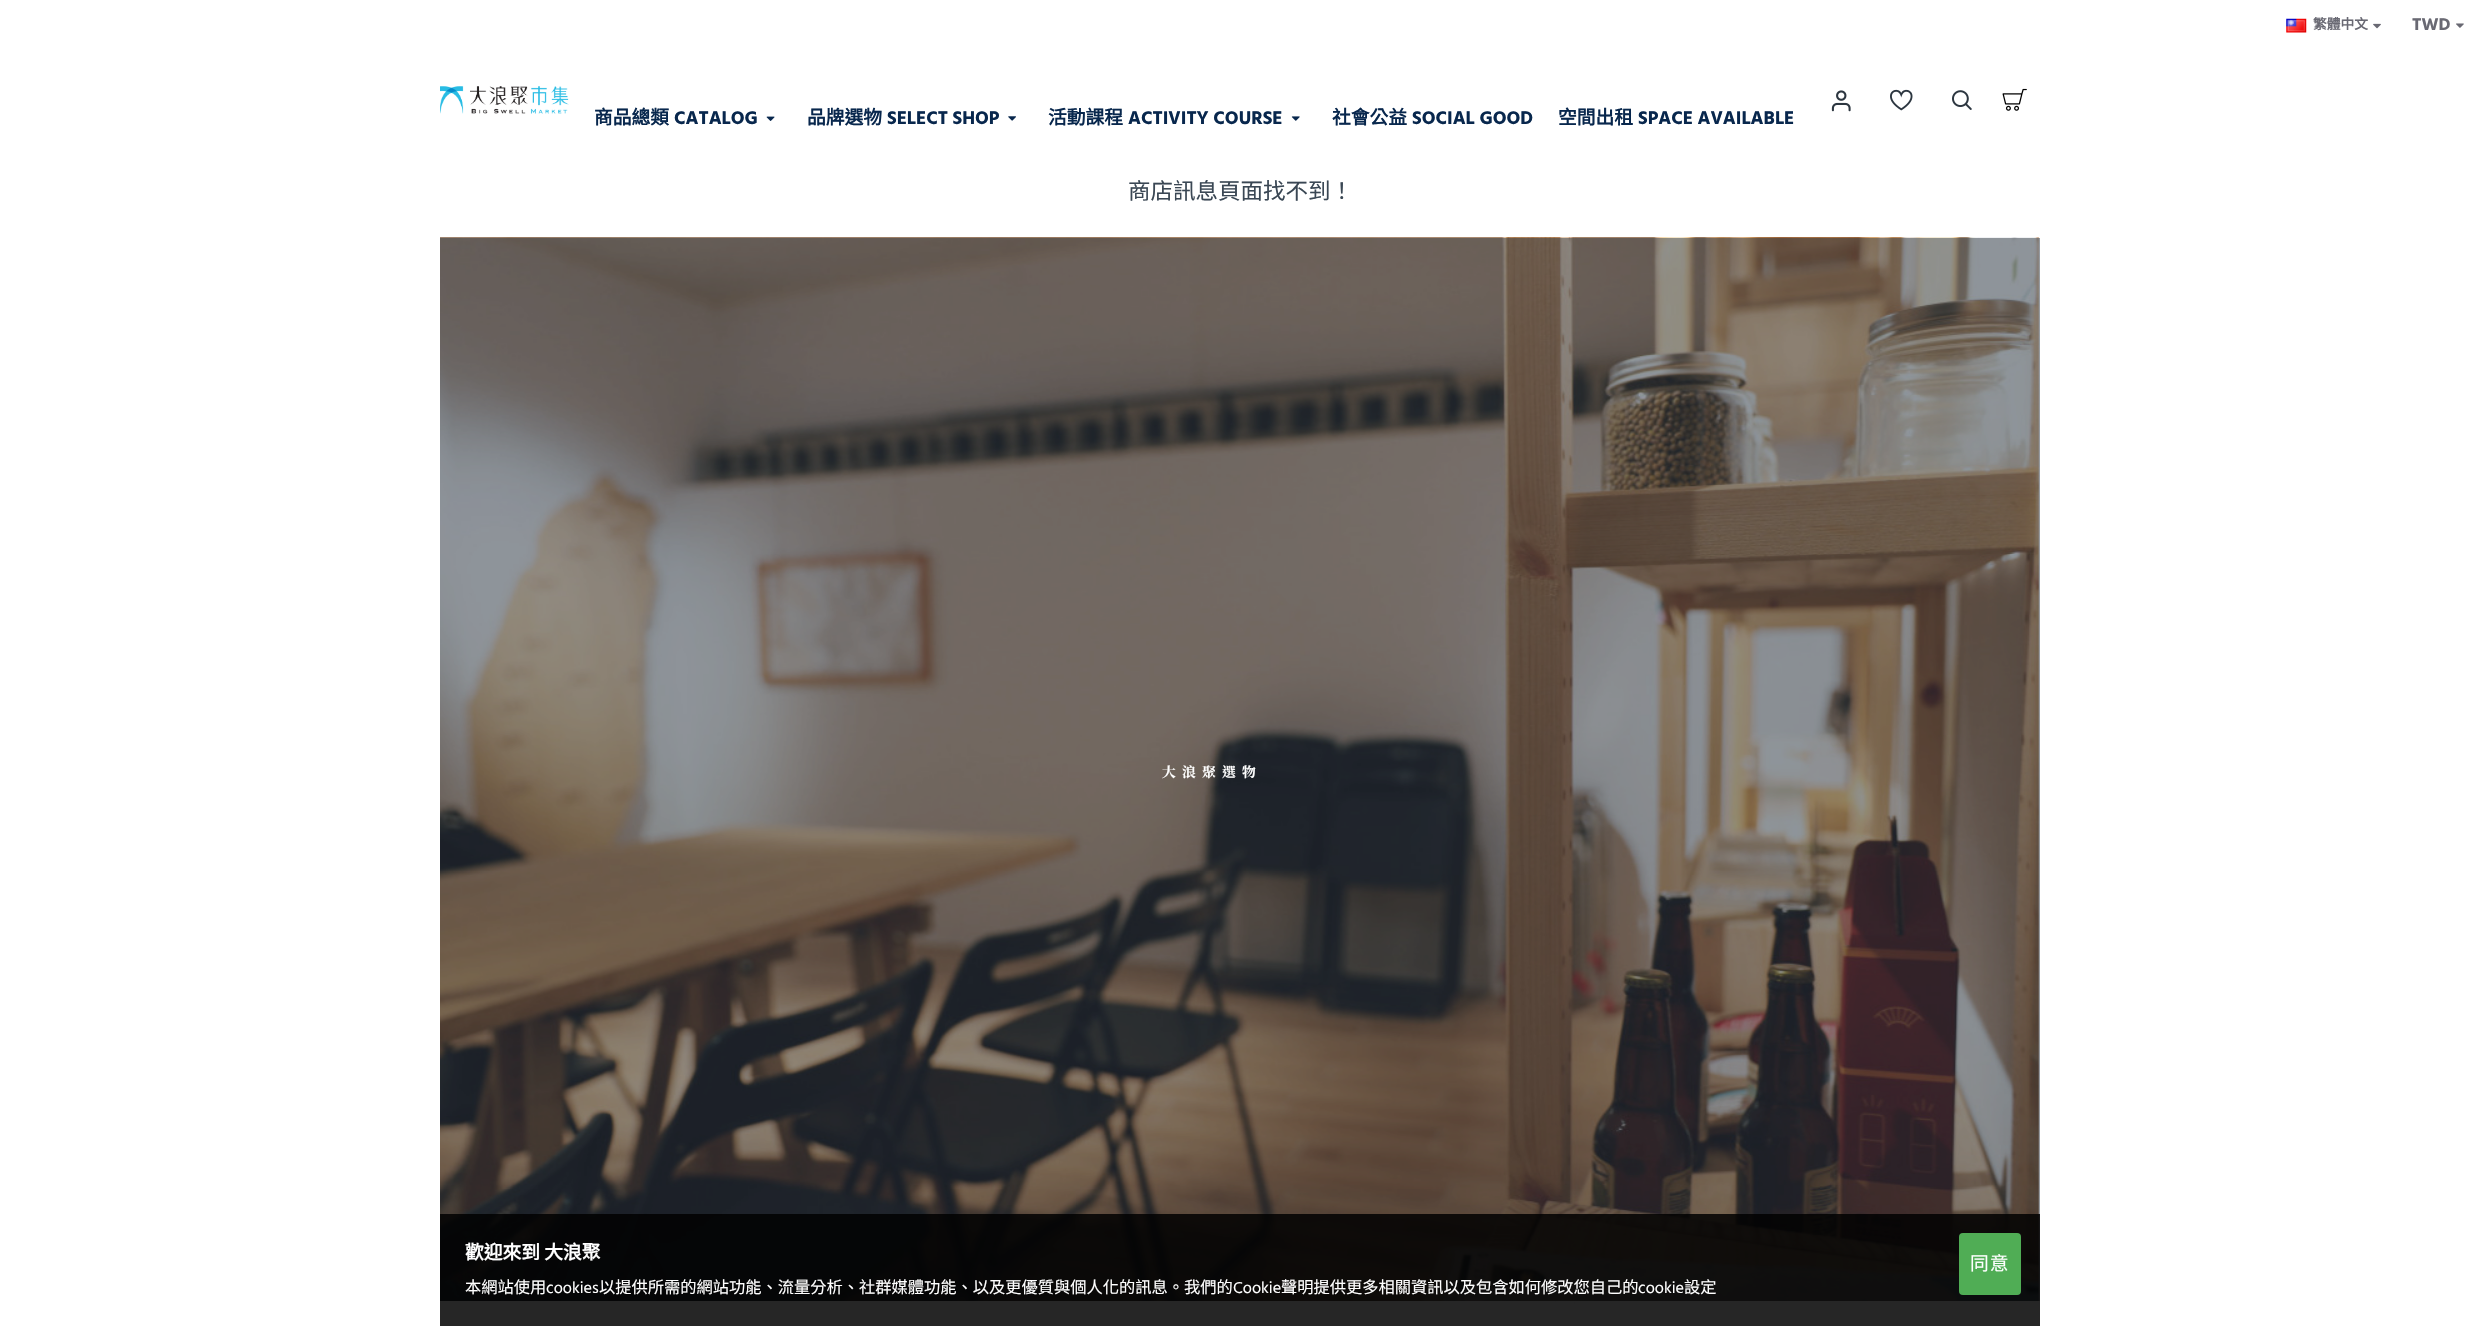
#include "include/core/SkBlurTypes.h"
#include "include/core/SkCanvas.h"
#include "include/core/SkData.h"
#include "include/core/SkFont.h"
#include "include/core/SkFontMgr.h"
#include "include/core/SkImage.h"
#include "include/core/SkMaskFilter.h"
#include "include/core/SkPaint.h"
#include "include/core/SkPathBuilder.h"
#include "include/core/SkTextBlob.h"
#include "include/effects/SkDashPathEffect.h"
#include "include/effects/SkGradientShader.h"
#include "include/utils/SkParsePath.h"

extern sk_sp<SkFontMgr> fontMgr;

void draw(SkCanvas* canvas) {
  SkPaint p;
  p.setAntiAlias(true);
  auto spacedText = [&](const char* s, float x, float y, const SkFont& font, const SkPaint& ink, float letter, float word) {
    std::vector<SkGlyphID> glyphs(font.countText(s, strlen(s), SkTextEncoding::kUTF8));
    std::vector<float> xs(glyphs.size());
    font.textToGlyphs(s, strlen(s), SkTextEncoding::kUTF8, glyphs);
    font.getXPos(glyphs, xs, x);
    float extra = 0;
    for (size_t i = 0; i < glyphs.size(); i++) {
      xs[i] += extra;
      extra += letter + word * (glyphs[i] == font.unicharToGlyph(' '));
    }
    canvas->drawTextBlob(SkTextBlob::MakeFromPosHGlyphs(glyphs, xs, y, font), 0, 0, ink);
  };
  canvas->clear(SK_ColorWHITE);
  canvas->drawImageRect(SkImages::DeferredFromEncodedData(SkData::MakeFromFileName("images/1.png")), SkRect::MakeLTRB(2286, 18, 2307, 33), SkSamplingOptions());
  canvas->drawImageRect(SkImages::DeferredFromEncodedData(SkData::MakeFromFileName("images/2.png")), SkRect::MakeLTRB(2373, 23, 2381, 29), SkSamplingOptions());
  canvas->drawImageRect(SkImages::DeferredFromEncodedData(SkData::MakeFromFileName("images/3.png")), SkRect::MakeLTRB(2456, 23, 2464, 28), SkSamplingOptions());
  canvas->drawImageRect(SkImages::DeferredFromEncodedData(SkData::MakeFromFileName("images/4.png")), SkRect::MakeLTRB(440, 86, 569, 114), SkSamplingOptions());
  canvas->drawImageRect(SkImages::DeferredFromEncodedData(SkData::MakeFromFileName("images/5.png")), SkRect::MakeLTRB(1831, 90, 1851, 112), SkSamplingOptions());
  canvas->drawImageRect(SkImages::DeferredFromEncodedData(SkData::MakeFromFileName("images/6.png")), SkRect::MakeLTRB(1890, 89, 1913, 111), SkSamplingOptions());
  canvas->drawImageRect(SkImages::DeferredFromEncodedData(SkData::MakeFromFileName("images/7.png")), SkRect::MakeLTRB(1952, 90, 1972, 110), SkSamplingOptions());
  canvas->drawImageRect(SkImages::DeferredFromEncodedData(SkData::MakeFromFileName("images/8.png")), SkRect::MakeLTRB(2002, 88, 2027, 111), SkSamplingOptions());
  canvas->drawImageRect(SkImages::DeferredFromEncodedData(SkData::MakeFromFileName("images/9.png")), SkRect::MakeLTRB(766, 116, 775, 121), SkSamplingOptions());
  canvas->drawImageRect(SkImages::DeferredFromEncodedData(SkData::MakeFromFileName("images/10.png")), SkRect::MakeLTRB(1008, 116, 1016, 121), SkSamplingOptions());
  canvas->drawImageRect(SkImages::DeferredFromEncodedData(SkData::MakeFromFileName("images/11.png")), SkRect::MakeLTRB(1291, 116, 1300, 121), SkSamplingOptions());
  canvas->drawImageRect(SkImages::DeferredFromEncodedData(SkData::MakeFromFileName("images/12.png")), SkRect::MakeLTRB(440, 237, 2040, 1301), SkSamplingOptions());
  canvas->drawImageRect(SkImages::DeferredFromEncodedData(SkData::MakeFromFileName("images/13.png")), SkRect::MakeLTRB(610, 1301, 1575, 1304), SkSamplingOptions());
  p.setColor(SkColorSetARGB(217, 0, 0, 0));
  canvas->drawRect(SkRect::MakeLTRB(440, 1214, 2040, 1326), p);
  p.setColor(SkColorSetRGB(80, 173, 85));
  canvas->drawRoundRect(SkRect::MakeLTRB(1959, 1233, 2021, 1295), 4, 4, p);
  SkFont font1(fontMgr->matchFamilyStyle("Noto Sans CJK TC", SkFontStyle::Bold()), 13.75f);
  font1.setSubpixel(true);
  p.setColor(SkColorSetRGB(105, 105, 115));
  canvas->drawString("繁體中文", 2313, 29, font1, p);
  SkFont font2(fontMgr->matchFamilyStyle("Hind Madurai", SkFontStyle::Bold()), 17.5f);
  font2.setSubpixel(true);
  canvas->drawString("TWD", 2412, 30, font2, p);
  SkFont font3(fontMgr->matchFamilyStyle("Noto Sans CJK TC", SkFontStyle::Bold()), 18.75f);
  font3.setSubpixel(true);
  p.setColor(SkColorSetRGB(8, 39, 77));
  canvas->drawString("商品總類", 594, 124, font3, p);
  SkFont font4(fontMgr->matchFamilyStyle("Hind Madurai", SkFontStyle::Bold()), 18.75f);
  font4.setSubpixel(true);
  canvas->drawString("CATALOG", 674, 124, font4, p);
  canvas->drawString("品牌選物", 807, 124, font3, p);
  canvas->drawString("SELECT SHOP", 887, 124, font4, p);
  canvas->drawString("活動課程", 1048, 124, font3, p);
  canvas->drawString("ACTIVITY COURSE", 1128, 124, font4, p);
  canvas->drawString("社會公益", 1332, 124, font3, p);
  canvas->drawString("SOCIAL GOOD", 1412, 124, font4, p);
  canvas->drawString("空間出租", 1558, 124, font3, p);
  canvas->drawString("SPACE AVAILABLE", 1638, 124, font4, p);
  SkFont font5(fontMgr->matchFamilyStyle("Noto Sans CJK TC", SkFontStyle::Normal()), 22.5f);
  font5.setSubpixel(true);
  p.setColor(SkColorSetRGB(58, 71, 84));
  canvas->drawString("商店訊息頁面找不到！", 1128, 199, font5, p);
  SkFont font6(fontMgr->matchFamilyStyle("Noto Serif TC", SkFontStyle(200, SkFontStyle::kNormal_Width, SkFontStyle::kUpright_Slant)), 13.75f);
  font6.setSubpixel(true);
  p.setColor(SK_ColorWHITE);
  spacedText("大浪聚選物", 1162, 777, font6, p, 6.25f, 0);
  canvas->drawString("歡迎來到 大浪聚", 465, 1259, font3, p);
  SkFont font7(fontMgr->matchFamilyStyle("Noto Sans CJK TC", SkFontStyle::Normal()), 16.25f);
  font7.setSubpixel(true);
  canvas->drawString("本網站使用", 465, 1293, font7, p);
  SkFont font8(fontMgr->matchFamilyStyle("Hind Madurai", SkFontStyle::Normal()), 16.25f);
  font8.setSubpixel(true);
  canvas->drawString("cookies", 546, 1293, font8, p);
  canvas->drawString("以提供所需的網站功能、流量分析、社群媒體功能、以及更優質與個人化的訊息。我們的", 599, 1293, font7, p);
  canvas->drawString("Cookie", 1233, 1293, font8, p);
  canvas->drawString("聲明提供更多相關資訊以及包含如何修改您自己的", 1281, 1293, font7, p);
  canvas->drawString("cookie", 1638, 1293, font8, p);
  canvas->drawString("設定", 1684, 1293, font7, p);
  SkFont font9(fontMgr->matchFamilyStyle("Noto Sans CJK TC", SkFontStyle::Normal()), 18.75f);
  font9.setSubpixel(true);
  spacedText("同意", 1970, 1270, font9, p, 1, 0);
}
